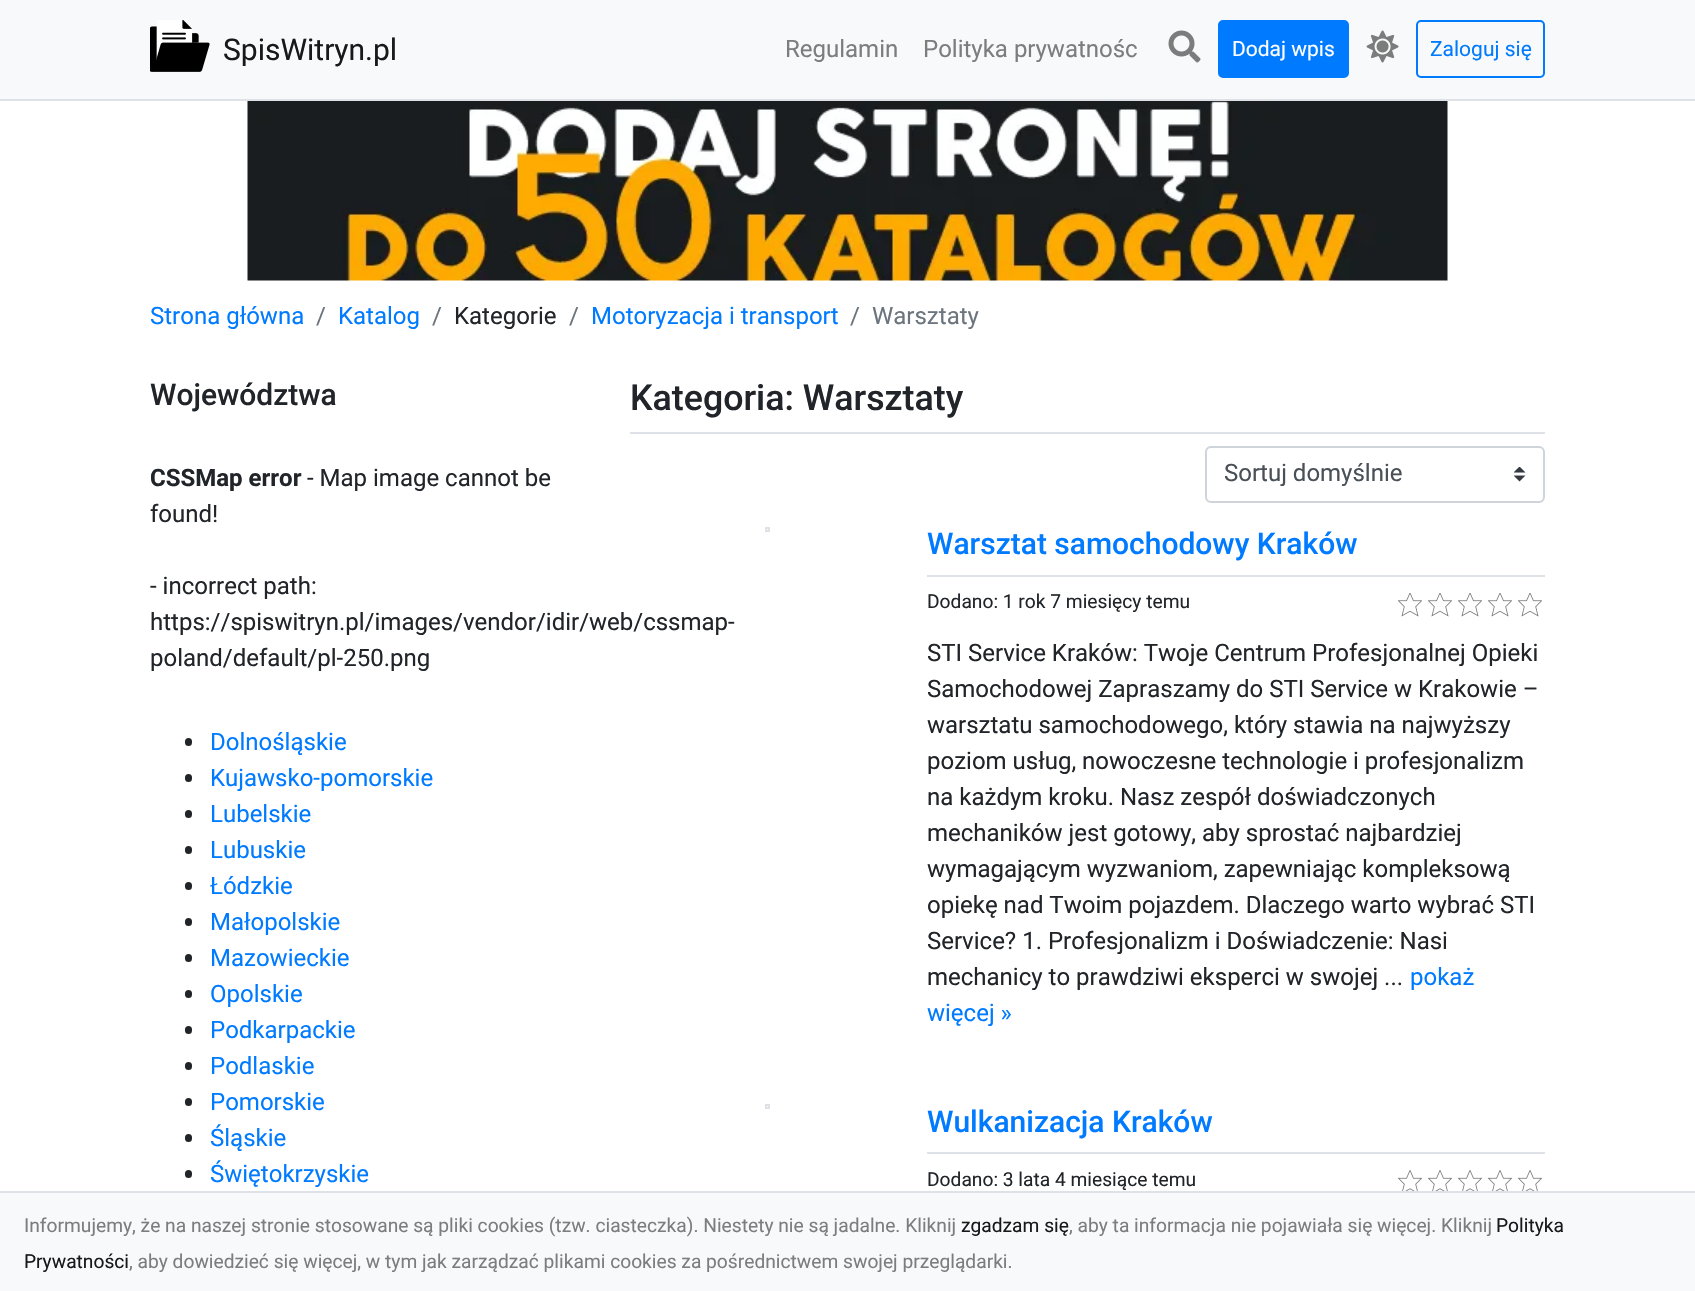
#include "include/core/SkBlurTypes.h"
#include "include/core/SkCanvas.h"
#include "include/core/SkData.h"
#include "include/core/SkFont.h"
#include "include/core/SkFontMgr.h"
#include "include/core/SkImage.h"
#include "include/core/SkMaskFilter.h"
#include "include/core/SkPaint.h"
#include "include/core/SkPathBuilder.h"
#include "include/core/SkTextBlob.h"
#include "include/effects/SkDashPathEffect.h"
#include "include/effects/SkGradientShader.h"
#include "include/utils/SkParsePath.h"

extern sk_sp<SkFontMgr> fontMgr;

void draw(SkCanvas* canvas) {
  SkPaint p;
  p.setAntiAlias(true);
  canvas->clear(SK_ColorWHITE);
  p.setColor(SkColorSetRGB(248, 249, 250));
  canvas->drawRect(SkRect::MakeLTRB(0, 0, 1695, 99), p);
  p.setColor(SkColorSetRGB(222, 226, 230));
  canvas->drawRect(SkRect::MakeLTRB(0, 99, 1695, 101), p);
  canvas->drawImageRect(SkImages::DeferredFromEncodedData(SkData::MakeFromFileName("images/1.png")), SkRect::MakeLTRB(150, 20, 210, 72), SkSamplingOptions());
  canvas->drawImageRect(SkImages::DeferredFromEncodedData(SkData::MakeFromFileName("images/2.png")), SkRect::MakeLTRB(1168, 30, 1201, 63), SkSamplingOptions());
  p.setColor(SkColorSetRGB(0, 123, 255));
  canvas->drawRoundRect(SkRect::MakeLTRB(1219, 21, 1348, 77), 4, 4, p);
  p.setStyle(SkPaint::kStroke_Style);
  p.setStrokeWidth(2);
  canvas->drawRoundRect(SkRect::MakeLTRB(1219, 21, 1348, 77), 4, 4, p);
  canvas->drawImageRect(SkImages::DeferredFromEncodedData(SkData::MakeFromFileName("images/3.png")), SkRect::MakeLTRB(1366, 30, 1399, 63), SkSamplingOptions());
  canvas->drawRoundRect(SkRect::MakeLTRB(1417, 21, 1544, 77), 4, 4, p);
  canvas->drawImageRect(SkImages::DeferredFromEncodedData(SkData::MakeFromFileName("images/4.png")), SkRect::MakeLTRB(247, 101, 1448, 281), SkSamplingOptions());
  p.setStyle(SkPaint::kFill_Style);
  p.setColor(SkColorSetRGB(33, 37, 41));
  canvas->drawRoundRect(SkRect::MakeLTRB(185, 738, 192, 746), 3.5f, 3.5f, p);
  canvas->drawRoundRect(SkRect::MakeLTRB(185, 774, 192, 782), 3.5f, 3.5f, p);
  canvas->drawRoundRect(SkRect::MakeLTRB(185, 810, 192, 818), 3.5f, 3.5f, p);
  canvas->drawRoundRect(SkRect::MakeLTRB(185, 846, 192, 854), 3.5f, 3.5f, p);
  canvas->drawRoundRect(SkRect::MakeLTRB(185, 882, 192, 890), 3.5f, 3.5f, p);
  canvas->drawRoundRect(SkRect::MakeLTRB(185, 918, 192, 926), 3.5f, 3.5f, p);
  canvas->drawRoundRect(SkRect::MakeLTRB(185, 954, 192, 962), 3.5f, 3.5f, p);
  canvas->drawRoundRect(SkRect::MakeLTRB(185, 990, 192, 998), 3.5f, 3.5f, p);
  canvas->drawRoundRect(SkRect::MakeLTRB(185, 1026, 192, 1034), 3.5f, 3.5f, p);
  canvas->drawRoundRect(SkRect::MakeLTRB(185, 1062, 192, 1070), 3.5f, 3.5f, p);
  canvas->drawRoundRect(SkRect::MakeLTRB(185, 1098, 192, 1106), 3.5f, 3.5f, p);
  canvas->drawRoundRect(SkRect::MakeLTRB(185, 1134, 192, 1142), 3.5f, 3.5f, p);
  canvas->drawRoundRect(SkRect::MakeLTRB(185, 1170, 192, 1178), 3.5f, 3.5f, p);
  p.setColor(SkColorSetRGB(222, 226, 230));
  canvas->drawRect(SkRect::MakeLTRB(630, 432, 1545, 434), p);
  canvas->drawImageRect(SkImages::DeferredFromEncodedData(SkData::MakeFromFileName("images/5.png")), SkRect::MakeLTRB(1514, 467, 1526, 482), SkSamplingOptions());
  p.setStyle(SkPaint::kStroke_Style);
  p.setColor(SkColorSetRGB(206, 212, 218));
  canvas->drawRoundRect(SkRect::MakeLTRB(1206, 447, 1544, 502), 5, 5, p);
  p.setColor(SkColorSetRGB(222, 226, 230));
  canvas->drawRect(SkRect::MakeLTRB(766, 528, 769, 531), p);
  p.setStyle(SkPaint::kFill_Style);
  canvas->drawRect(SkRect::MakeLTRB(927, 575, 1545, 577), p);
  canvas->drawImageRect(SkImages::DeferredFromEncodedData(SkData::MakeFromFileName("images/6.png")), SkRect::MakeLTRB(1398, 593, 1422, 617), SkSamplingOptions());
  canvas->drawImageRect(SkImages::DeferredFromEncodedData(SkData::MakeFromFileName("images/6.png")), SkRect::MakeLTRB(1428, 593, 1452, 617), SkSamplingOptions());
  canvas->drawImageRect(SkImages::DeferredFromEncodedData(SkData::MakeFromFileName("images/6.png")), SkRect::MakeLTRB(1458, 593, 1482, 617), SkSamplingOptions());
  canvas->drawImageRect(SkImages::DeferredFromEncodedData(SkData::MakeFromFileName("images/6.png")), SkRect::MakeLTRB(1488, 593, 1512, 617), SkSamplingOptions());
  canvas->drawImageRect(SkImages::DeferredFromEncodedData(SkData::MakeFromFileName("images/6.png")), SkRect::MakeLTRB(1518, 593, 1542, 617), SkSamplingOptions());
  p.setStyle(SkPaint::kStroke_Style);
  canvas->drawRect(SkRect::MakeLTRB(766, 1105, 769, 1108), p);
  p.setStyle(SkPaint::kFill_Style);
  canvas->drawRect(SkRect::MakeLTRB(927, 1152, 1545, 1154), p);
  canvas->drawImageRect(SkImages::DeferredFromEncodedData(SkData::MakeFromFileName("images/7.png")), SkRect::MakeLTRB(1398, 1170, 1422, 1191), SkSamplingOptions());
  canvas->drawImageRect(SkImages::DeferredFromEncodedData(SkData::MakeFromFileName("images/7.png")), SkRect::MakeLTRB(1428, 1170, 1452, 1191), SkSamplingOptions());
  canvas->drawImageRect(SkImages::DeferredFromEncodedData(SkData::MakeFromFileName("images/7.png")), SkRect::MakeLTRB(1458, 1170, 1482, 1191), SkSamplingOptions());
  canvas->drawImageRect(SkImages::DeferredFromEncodedData(SkData::MakeFromFileName("images/7.png")), SkRect::MakeLTRB(1488, 1170, 1512, 1191), SkSamplingOptions());
  canvas->drawImageRect(SkImages::DeferredFromEncodedData(SkData::MakeFromFileName("images/7.png")), SkRect::MakeLTRB(1518, 1170, 1542, 1191), SkSamplingOptions());
  p.setColor(SkColorSetRGB(248, 249, 250));
  canvas->drawRect(SkRect::MakeLTRB(0, 1193, 1695, 1291), p);
  p.setColor(SkColorSetRGB(222, 226, 230));
  canvas->drawRect(SkRect::MakeLTRB(0, 1191, 1695, 1193), p);
  SkFont font1(fontMgr->matchFamilyStyle("Roboto", SkFontStyle::Normal()), 30);
  font1.setSubpixel(true);
  p.setColor(SkColorSetRGB(25, 25, 25));
  canvas->drawString("SpisWitryn.pl", 223, 60, font1, p);
  SkFont font2(fontMgr->matchFamilyStyle("Roboto", SkFontStyle::Normal()), 24);
  font2.setSubpixel(true);
  p.setColor(SkColorSetRGB(124, 125, 125));
  canvas->drawString("Regulamin", 785, 57, font2, p);
  canvas->drawString("Polityka prywatnośc", 923, 57, font2, p);
  SkFont font3(fontMgr->matchFamilyStyle("Roboto", SkFontStyle::Normal()), 21);
  font3.setSubpixel(true);
  p.setColor(SK_ColorWHITE);
  canvas->drawString("Dodaj wpis", 1232, 56, font3, p);
  p.setColor(SkColorSetRGB(0, 123, 255));
  canvas->drawString("Zaloguj się", 1430, 56, font3, p);
  canvas->drawString("Strona główna", 150, 324, font2, p);
  p.setColor(SkColorSetRGB(108, 117, 125));
  canvas->drawString("/", 316, 324, font2, p);
  p.setColor(SkColorSetRGB(0, 123, 255));
  canvas->drawString("Katalog", 338, 324, font2, p);
  p.setColor(SkColorSetRGB(108, 117, 125));
  canvas->drawString("/", 432, 324, font2, p);
  p.setColor(SkColorSetRGB(33, 37, 41));
  canvas->drawString("Kategorie", 454, 324, font2, p);
  p.setColor(SkColorSetRGB(108, 117, 125));
  canvas->drawString("/", 569, 324, font2, p);
  p.setColor(SkColorSetRGB(0, 123, 255));
  canvas->drawString("Motoryzacja i transport", 591, 324, font2, p);
  p.setColor(SkColorSetRGB(108, 117, 125));
  canvas->drawString("/", 850, 324, font2, p);
  canvas->drawString("Warsztaty", 872, 324, font2, p);
  SkFont font4(fontMgr->matchFamilyStyle("Roboto", SkFontStyle(500, SkFontStyle::kNormal_Width, SkFontStyle::kUpright_Slant)), 30);
  font4.setSubpixel(true);
  p.setColor(SkColorSetRGB(33, 37, 41));
  canvas->drawString("Województwa", 150, 405, font4, p);
  SkFont font5(fontMgr->matchFamilyStyle("Roboto", SkFontStyle::Bold()), 24);
  font5.setSubpixel(true);
  canvas->drawString("CSSMap error", 150, 486, font5, p);
  canvas->drawString("- Map image cannot be", 307, 486, font2, p);
  canvas->drawString("found!", 150, 522, font2, p);
  canvas->drawString("- incorrect path:", 150, 594, font2, p);
  canvas->drawString("https://spiswitryn.pl/images/vendor/idir/web/cssmap-", 150, 630, font2, p);
  canvas->drawString("poland/default/pl-250.png", 150, 666, font2, p);
  p.setColor(SkColorSetRGB(0, 123, 255));
  canvas->drawString("Dolnośląskie", 210, 750, font2, p);
  canvas->drawString("Kujawsko-pomorskie", 210, 786, font2, p);
  canvas->drawString("Lubelskie", 210, 822, font2, p);
  canvas->drawString("Lubuskie", 210, 858, font2, p);
  canvas->drawString("Łódzkie", 210, 894, font2, p);
  canvas->drawString("Małopolskie", 210, 930, font2, p);
  canvas->drawString("Mazowieckie", 210, 966, font2, p);
  canvas->drawString("Opolskie", 210, 1002, font2, p);
  canvas->drawString("Podkarpackie", 210, 1038, font2, p);
  canvas->drawString("Podlaskie", 210, 1074, font2, p);
  canvas->drawString("Pomorskie", 210, 1110, font2, p);
  canvas->drawString("Śląskie", 210, 1146, font2, p);
  canvas->drawString("Świętokrzyskie", 210, 1182, font2, p);
  SkFont font6(fontMgr->matchFamilyStyle("Roboto", SkFontStyle(500, SkFontStyle::kNormal_Width, SkFontStyle::kUpright_Slant)), 35.75f);
  font6.setSubpixel(true);
  p.setColor(SkColorSetRGB(33, 37, 41));
  canvas->drawString("Kategoria: Warsztaty", 630, 410, font6, p);
  p.setColor(SkColorSetRGB(73, 80, 87));
  canvas->drawString("Sortuj domyślnie", 1224, 481, font2, p);
  p.setColor(SkColorSetRGB(0, 123, 255));
  canvas->drawString("Warsztat samochodowy Kraków", 927, 554, font4, p);
  SkFont font7(fontMgr->matchFamilyStyle("Roboto", SkFontStyle::Normal()), 19.2f);
  font7.setSubpixel(true);
  p.setColor(SkColorSetRGB(33, 37, 41));
  canvas->drawString("Dodano: 1 rok 7 miesięcy temu", 927, 608, font7, p);
  canvas->drawString("STI Service Kraków: Twoje Centrum Profesjonalnej Opieki", 927, 661, font2, p);
  canvas->drawString("Samochodowej Zapraszamy do STI Service w Krakowie –", 927, 697, font2, p);
  canvas->drawString("warsztatu samochodowego, który stawia na najwyższy", 927, 733, font2, p);
  canvas->drawString("poziom usług, nowoczesne technologie i profesjonalizm", 927, 769, font2, p);
  canvas->drawString("na każdym kroku. Nasz zespół doświadczonych", 927, 805, font2, p);
  canvas->drawString("mechaników jest gotowy, aby sprostać najbardziej", 927, 841, font2, p);
  canvas->drawString("wymagającym wyzwaniom, zapewniając kompleksową", 927, 877, font2, p);
  canvas->drawString("opiekę nad Twoim pojazdem. Dlaczego warto wybrać STI", 927, 913, font2, p);
  canvas->drawString("Service? 1. Profesjonalizm i Doświadczenie: Nasi", 927, 949, font2, p);
  canvas->drawString("mechanicy to prawdziwi eksperci w swojej ...", 927, 985, font2, p);
  p.setColor(SkColorSetRGB(0, 123, 255));
  canvas->drawString("pokaż", 1410, 985, font2, p);
  canvas->drawString("więcej »", 927, 1021, font2, p);
  canvas->drawString("Wulkanizacja Kraków", 927, 1132, font4, p);
  p.setColor(SkColorSetRGB(33, 37, 41));
  canvas->drawString("Dodano: 3 lata 4 miesiące temu", 927, 1186, font7, p);
  p.setColor(SkColorSetRGB(124, 125, 125));
  canvas->drawString("Informujemy, że na naszej stronie stosowane są pliki cookies (tzw. ciasteczka). Niestety nie są jadalne. Kliknij", 24, 1232, font7, p);
  p.setColor(SkColorSetRGB(25, 25, 25));
  canvas->drawString("zgadzam się", 961, 1232, font7, p);
  p.setColor(SkColorSetRGB(124, 125, 125));
  canvas->drawString(", aby ta informacja nie pojawiała się więcej. Kliknij", 1069, 1232, font7, p);
  p.setColor(SkColorSetRGB(25, 25, 25));
  canvas->drawString("Polityka", 1496, 1232, font7, p);
  canvas->drawString("Prywatności", 24, 1268, font7, p);
  p.setColor(SkColorSetRGB(124, 125, 125));
  canvas->drawString(", aby dowiedzieć się więcej, w tym jak zarządzać plikami cookies za pośrednictwem swojej przeglądarki.", 129, 1268, font7, p);
}
